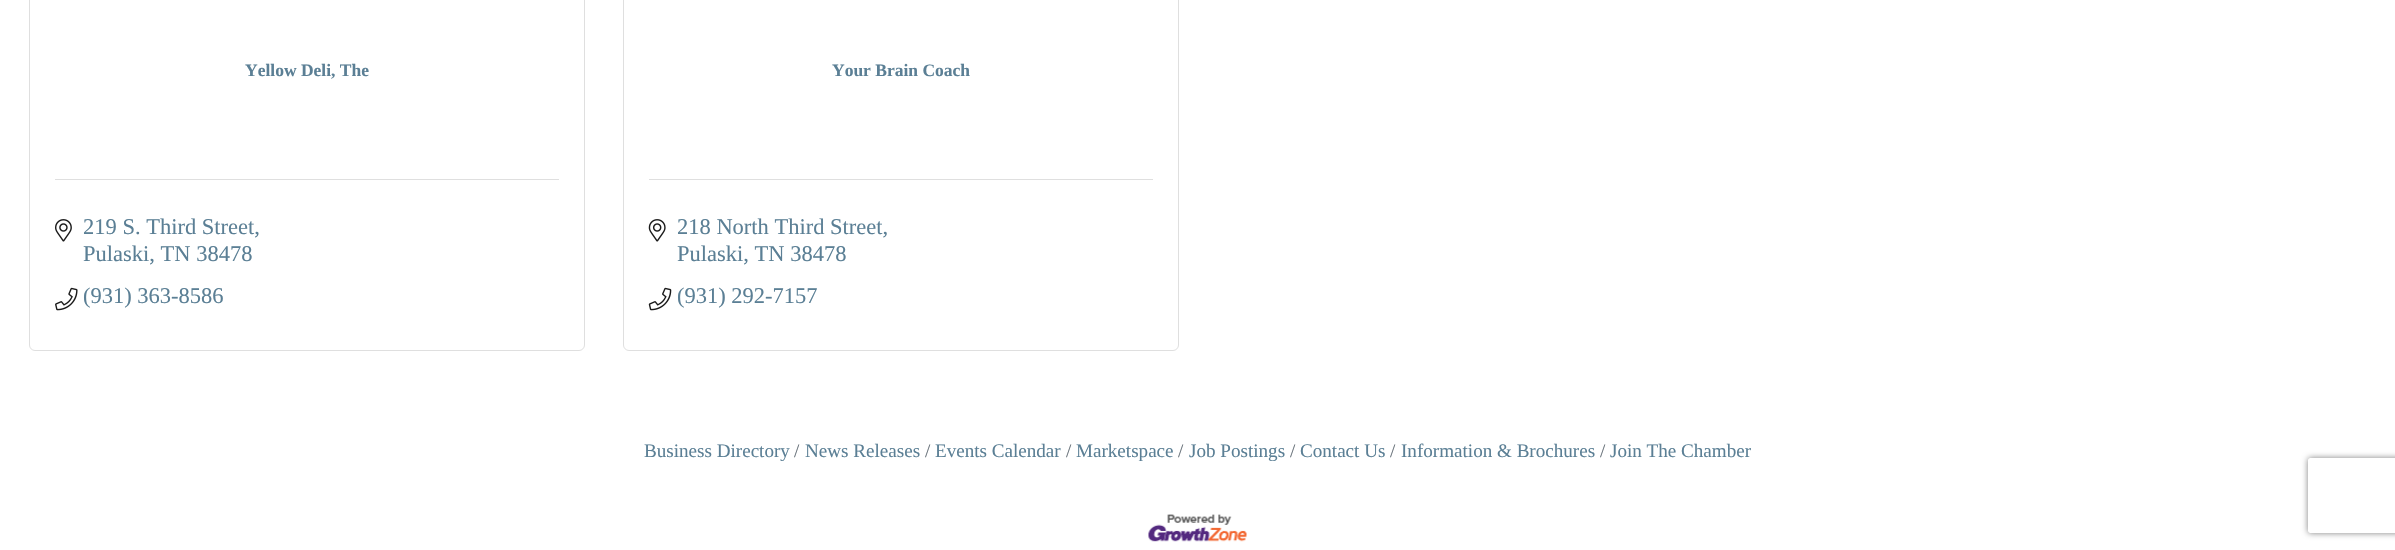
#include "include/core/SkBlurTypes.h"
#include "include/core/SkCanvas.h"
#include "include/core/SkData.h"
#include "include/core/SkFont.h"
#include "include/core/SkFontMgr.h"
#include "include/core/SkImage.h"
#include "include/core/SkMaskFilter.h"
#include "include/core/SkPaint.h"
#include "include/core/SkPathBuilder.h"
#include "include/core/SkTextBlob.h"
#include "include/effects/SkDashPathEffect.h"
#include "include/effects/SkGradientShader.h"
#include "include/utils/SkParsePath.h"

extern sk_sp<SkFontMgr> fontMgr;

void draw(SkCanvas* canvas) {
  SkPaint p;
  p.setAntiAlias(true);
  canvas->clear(SK_ColorWHITE);
  p.setStyle(SkPaint::kStroke_Style);
  p.setStrokeWidth(1);
  p.setColor(SkColorSetRGB(223, 223, 223));
  canvas->drawRoundRect(SkRect::MakeLTRB(29.5f, -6.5f, 584.5f, 350.5f), 5.5f, 5.5f, p);
  p.setStyle(SkPaint::kFill_Style);
  canvas->drawRect(SkRect::MakeLTRB(55, 179, 559, 180), p);
  canvas->drawImageRect(SkImages::DeferredFromEncodedData(SkData::MakeFromFileName("images/1.png")), SkRect::MakeLTRB(55, 219, 72, 242), SkSamplingOptions());
  canvas->drawImageRect(SkImages::DeferredFromEncodedData(SkData::MakeFromFileName("images/2.png")), SkRect::MakeLTRB(55, 287, 78, 311), SkSamplingOptions());
  p.setStyle(SkPaint::kStroke_Style);
  canvas->drawRoundRect(SkRect::MakeLTRB(623.5f, -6.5f, 1178.5f, 350.5f), 5.5f, 5.5f, p);
  p.setStyle(SkPaint::kFill_Style);
  canvas->drawRect(SkRect::MakeLTRB(649, 179, 1153, 180), p);
  canvas->drawImageRect(SkImages::DeferredFromEncodedData(SkData::MakeFromFileName("images/3.png")), SkRect::MakeLTRB(648, 219, 666, 242), SkSamplingOptions());
  canvas->drawImageRect(SkImages::DeferredFromEncodedData(SkData::MakeFromFileName("images/4.png")), SkRect::MakeLTRB(648, 287, 672, 311), SkSamplingOptions());
  canvas->drawImageRect(SkImages::DeferredFromEncodedData(SkData::MakeFromFileName("images/5.png")), SkRect::MakeLTRB(1148, 514, 1247, 542), SkSamplingOptions());
  canvas->save();
  canvas->clipPath(SkPathBuilder(SkPathFillType::kEvenOdd).moveTo(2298, 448).lineTo(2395, 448).lineTo(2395, 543).lineTo(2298, 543).close().moveTo(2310.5f, 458).lineTo(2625.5f, 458).cubicTo(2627, 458, 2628, 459, 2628, 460.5f).lineTo(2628, 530.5f).cubicTo(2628, 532, 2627, 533, 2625.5f, 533).lineTo(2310.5f, 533).cubicTo(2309, 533, 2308, 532, 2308, 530.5f).lineTo(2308, 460.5f).cubicTo(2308, 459, 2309, 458, 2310.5f, 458).close().detach(), true);
  p.setColor(SkColorSetRGB(128, 128, 128));
  p.setMaskFilter(SkMaskFilter::MakeBlur(kNormal_SkBlurStyle, 3));
  canvas->drawRoundRect(SkRect::MakeLTRB(2308, 458, 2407, 533), 2.5f, 2.5f, p);
  p.setMaskFilter(nullptr);
  canvas->restore();
  SkFont font1(fontMgr->matchFamilyStyle("Liberation Serif", SkFontStyle::Bold()), 17.5f);
  font1.setSubpixel(true);
  p.setColor(SkColorSetRGB(91, 127, 149));
  canvas->drawString("Yellow Deli, The", 245, 76, font1, p);
  SkFont font2(fontMgr->matchFamilyStyle("Liberation Serif", SkFontStyle::Normal()), 22.5f);
  font2.setSubpixel(true);
  canvas->drawString("219 S. Third Street,", 83, 234, font2, p);
  canvas->drawString("Pulaski, TN 38478", 83, 261, font2, p);
  canvas->drawString("(931) 363-8586", 83, 303, font2, p);
  canvas->drawString("Your Brain Coach", 832, 76, font1, p);
  canvas->drawString("218 North Third Street,", 677, 234, font2, p);
  canvas->drawString("Pulaski, TN 38478", 677, 261, font2, p);
  canvas->drawString("(931) 292-7157", 677, 303, font2, p);
  SkFont font3(fontMgr->matchFamilyStyle("Liberation Serif", SkFontStyle::Normal()), 19.1f);
  font3.setSubpixel(true);
  canvas->drawString("Business Directory", 644, 457, font3, p);
  p.setColor(SkColorSetRGB(108, 117, 125));
  canvas->drawString("/", 794, 457, font3, p);
  p.setColor(SkColorSetRGB(91, 127, 149));
  canvas->drawString("News Releases", 805, 457, font3, p);
  p.setColor(SkColorSetRGB(108, 117, 125));
  canvas->drawString("/", 925, 457, font3, p);
  p.setColor(SkColorSetRGB(91, 127, 149));
  canvas->drawString("Events Calendar", 935, 457, font3, p);
  p.setColor(SkColorSetRGB(108, 117, 125));
  canvas->drawString("/", 1066, 457, font3, p);
  p.setColor(SkColorSetRGB(91, 127, 149));
  canvas->drawString("Marketspace", 1076, 457, font3, p);
  p.setColor(SkColorSetRGB(108, 117, 125));
  canvas->drawString("/", 1178, 457, font3, p);
  p.setColor(SkColorSetRGB(91, 127, 149));
  canvas->drawString("Job Postings", 1189, 457, font3, p);
  p.setColor(SkColorSetRGB(108, 117, 125));
  canvas->drawString("/", 1290, 457, font3, p);
  p.setColor(SkColorSetRGB(91, 127, 149));
  canvas->drawString("Contact Us", 1300, 457, font3, p);
  p.setColor(SkColorSetRGB(108, 117, 125));
  canvas->drawString("/", 1390, 457, font3, p);
  p.setColor(SkColorSetRGB(91, 127, 149));
  canvas->drawString("Information & Brochures", 1401, 457, font3, p);
  p.setColor(SkColorSetRGB(108, 117, 125));
  canvas->drawString("/", 1600, 457, font3, p);
  p.setColor(SkColorSetRGB(91, 127, 149));
  canvas->drawString("Join The Chamber", 1610, 457, font3, p);
}
